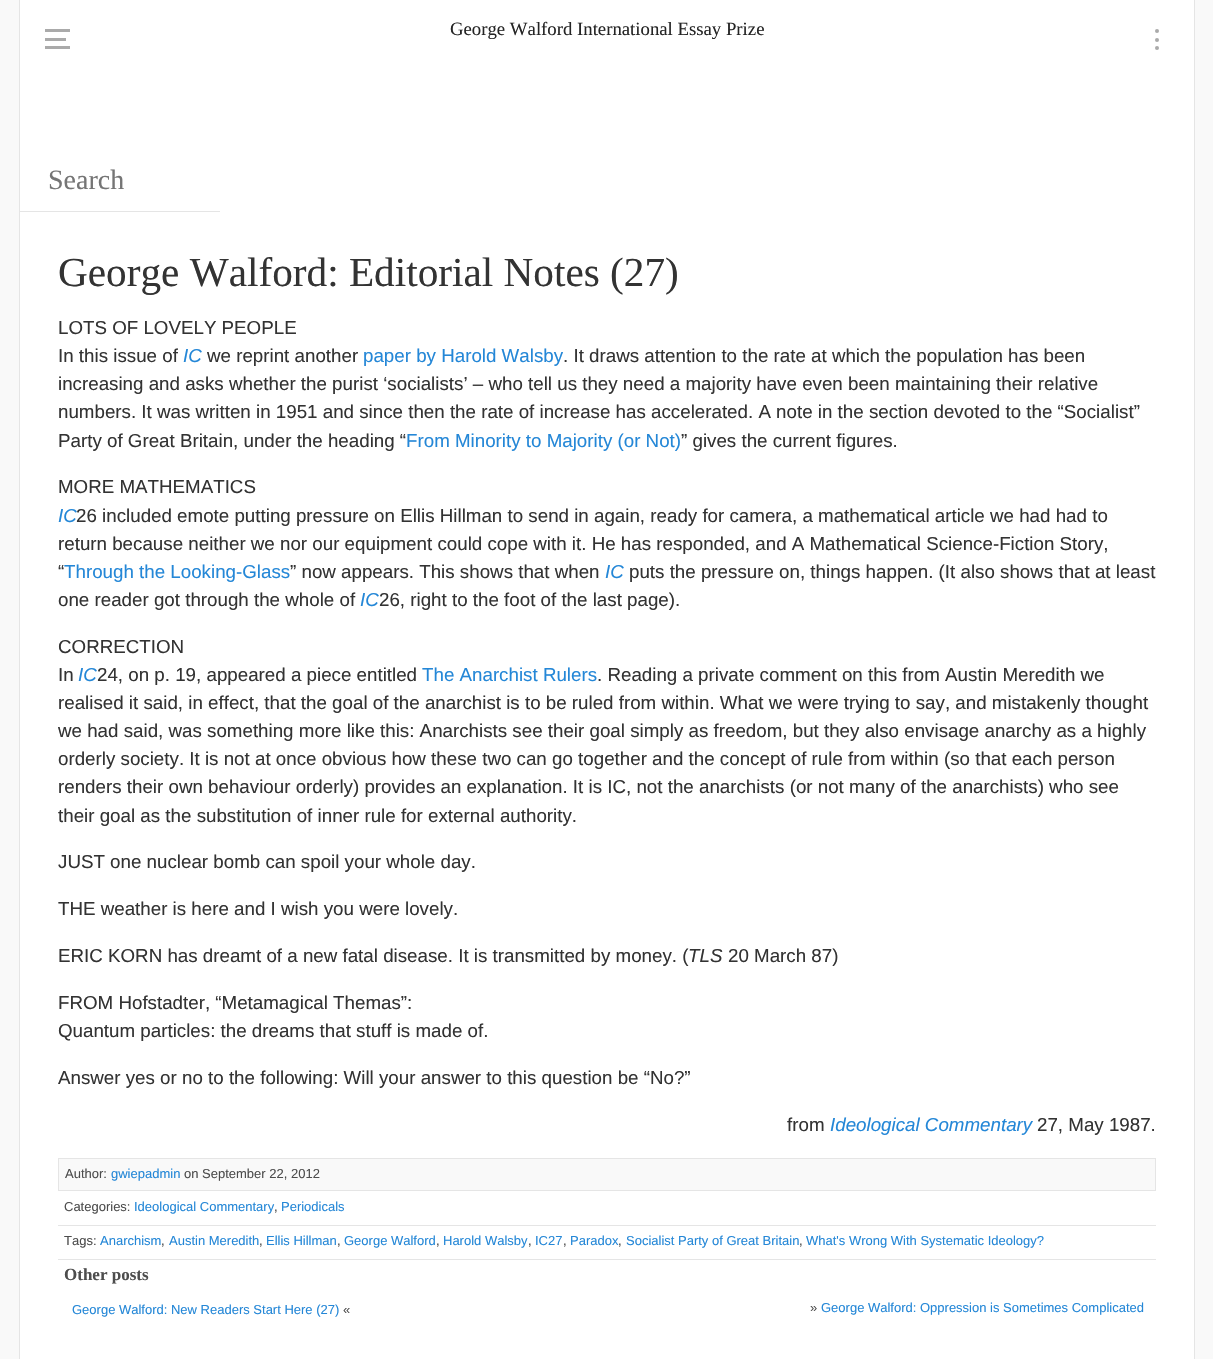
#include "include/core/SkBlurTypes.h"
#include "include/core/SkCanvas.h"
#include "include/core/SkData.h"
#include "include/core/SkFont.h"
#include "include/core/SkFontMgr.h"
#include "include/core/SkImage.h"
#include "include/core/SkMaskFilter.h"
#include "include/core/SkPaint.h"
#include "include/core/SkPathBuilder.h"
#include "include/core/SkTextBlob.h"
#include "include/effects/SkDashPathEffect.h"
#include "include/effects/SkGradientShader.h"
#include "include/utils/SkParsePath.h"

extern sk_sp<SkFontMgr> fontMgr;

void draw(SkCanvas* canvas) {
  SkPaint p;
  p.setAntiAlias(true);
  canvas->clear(SkColorSetRGB(249, 249, 249));
  p.setColor(SK_ColorWHITE);
  canvas->drawRect(SkRect::MakeLTRB(20, 0, 1194, 1359), p);
  p.setColor(SkColorSetRGB(170, 170, 170));
  canvas->drawRect(SkRect::MakeLTRB(45, 29, 70, 32), p);
  canvas->drawRect(SkRect::MakeLTRB(45, 38, 66, 41), p);
  canvas->drawRect(SkRect::MakeLTRB(45, 46, 70, 49), p);
  canvas->drawCircle(1157, 31, 2, p);
  canvas->drawCircle(1157, 40, 2, p);
  canvas->drawCircle(1157, 48, 2, p);
  p.setColor(SkColorSetRGB(229, 229, 229));
  canvas->drawRect(SkRect::MakeLTRB(1194, 0, 1195, 1359), p);
  canvas->drawRect(SkRect::MakeLTRB(19, 0, 20, 1359), p);
  canvas->drawRect(SkRect::MakeLTRB(20, 211, 220, 212), p);
  p.setColor(SkColorSetRGB(249, 249, 249));
  canvas->drawRect(SkRect::MakeLTRB(58.5f, 1158.5f, 1155.5f, 1190.5f), p);
  p.setStyle(SkPaint::kStroke_Style);
  p.setStrokeWidth(1);
  p.setColor(SkColorSetRGB(229, 229, 229));
  canvas->drawRect(SkRect::MakeLTRB(58.5f, 1158.5f, 1155.5f, 1190.5f), p);
  p.setStyle(SkPaint::kFill_Style);
  canvas->drawRect(SkRect::MakeLTRB(58, 1225, 1156, 1226), p);
  canvas->drawRect(SkRect::MakeLTRB(58, 1259, 1156, 1260), p);
  SkFont font1(fontMgr->matchFamilyStyle("Liberation Serif", SkFontStyle::Normal()), 18.75f);
  font1.setSubpixel(true);
  p.setColor(SkColorSetRGB(37, 37, 37));
  canvas->drawString("George Walford International Essay Prize", 450, 35, font1, p);
  SkFont font2(fontMgr->matchFamilyStyle("Liberation Serif", SkFontStyle::Normal()), 28);
  font2.setSubpixel(true);
  p.setColor(SkColorSetRGB(117, 117, 117));
  canvas->drawString("Search", 48, 189, font2, p);
  SkFont font3(fontMgr->matchFamilyStyle("Liberation Serif", SkFontStyle::Normal()), 41.25f);
  font3.setSubpixel(true);
  p.setColor(SkColorSetRGB(51, 51, 51));
  canvas->drawString("George Walford: Editorial Notes (27)", 58, 286, font3, p);
  SkFont font4(fontMgr->matchFamilyStyle("Liberation Sans", SkFontStyle::Normal()), 18.75f);
  font4.setSubpixel(true);
  canvas->drawString("LOTS OF LOVELY PEOPLE", 58, 334, font4, p);
  canvas->drawString("In this issue of", 58, 362, font4, p);
  SkFont font5(fontMgr->matchFamilyStyle("Liberation Sans", SkFontStyle::Italic()), 18.75f);
  font5.setSubpixel(true);
  p.setColor(SkColorSetRGB(36, 135, 215));
  canvas->drawString("IC", 183, 362, font5, p);
  p.setColor(SkColorSetRGB(51, 51, 51));
  canvas->drawString("we reprint another", 207, 362, font4, p);
  p.setColor(SkColorSetRGB(36, 135, 215));
  canvas->drawString("paper by Harold Walsby", 363, 362, font4, p);
  p.setColor(SkColorSetRGB(51, 51, 51));
  canvas->drawString(". It draws attention to the rate at which the population has been", 563, 362, font4, p);
  canvas->drawString("increasing and asks whether the purist ‘socialists’ – who tell us they need a majority have even been maintaining their relative", 58, 390, font4, p);
  canvas->drawString("numbers. It was written in 1951 and since then the rate of increase has accelerated. A note in the section devoted to the “Socialist”", 58, 418, font4, p);
  canvas->drawString("Party of Great Britain, under the heading “", 58, 447, font4, p);
  p.setColor(SkColorSetRGB(36, 135, 215));
  canvas->drawString("From Minority to Majority (or Not)", 406, 447, font4, p);
  p.setColor(SkColorSetRGB(51, 51, 51));
  canvas->drawString("” gives the current figures.", 681, 447, font4, p);
  canvas->drawString("MORE MATHEMATICS", 58, 493, font4, p);
  p.setColor(SkColorSetRGB(36, 135, 215));
  canvas->drawString("IC", 58, 522, font5, p);
  p.setColor(SkColorSetRGB(51, 51, 51));
  canvas->drawString("26 included emote putting pressure on Ellis Hillman to send in again, ready for camera, a mathematical article we had had to", 76, 522, font4, p);
  canvas->drawString("return because neither we nor our equipment could cope with it. He has responded, and A Mathematical Science-Fiction Story,", 58, 550, font4, p);
  canvas->drawString("“", 58, 578, font4, p);
  p.setColor(SkColorSetRGB(36, 135, 215));
  canvas->drawString("Through the Looking-Glass", 64, 578, font4, p);
  p.setColor(SkColorSetRGB(51, 51, 51));
  canvas->drawString("” now appears. This shows that when", 290, 578, font4, p);
  p.setColor(SkColorSetRGB(36, 135, 215));
  canvas->drawString("IC", 605, 578, font5, p);
  p.setColor(SkColorSetRGB(51, 51, 51));
  canvas->drawString("puts the pressure on, things happen. (It also shows that at least", 629, 578, font4, p);
  canvas->drawString("one reader got through the whole of", 58, 606, font4, p);
  p.setColor(SkColorSetRGB(36, 135, 215));
  canvas->drawString("IC", 360, 606, font5, p);
  p.setColor(SkColorSetRGB(51, 51, 51));
  canvas->drawString("26, right to the foot of the last page).", 379, 606, font4, p);
  canvas->drawString("CORRECTION", 58, 653, font4, p);
  canvas->drawString("In", 58, 681, font4, p);
  p.setColor(SkColorSetRGB(36, 135, 215));
  canvas->drawString("IC", 78, 681, font5, p);
  p.setColor(SkColorSetRGB(51, 51, 51));
  canvas->drawString("24, on p. 19, appeared a piece entitled", 97, 681, font4, p);
  p.setColor(SkColorSetRGB(36, 135, 215));
  canvas->drawString("The Anarchist Rulers", 422, 681, font4, p);
  p.setColor(SkColorSetRGB(51, 51, 51));
  canvas->drawString(". Reading a private comment on this from Austin Meredith we", 597, 681, font4, p);
  canvas->drawString("realised it said, in effect, that the goal of the anarchist is to be ruled from within. What we were trying to say, and mistakenly thought", 58, 709, font4, p);
  canvas->drawString("we had said, was something more like this: Anarchists see their goal simply as freedom, but they also envisage anarchy as a highly", 58, 737, font4, p);
  canvas->drawString("orderly society. It is not at once obvious how these two can go together and the concept of rule from within (so that each person", 58, 765, font4, p);
  canvas->drawString("renders their own behaviour orderly) provides an explanation. It is IC, not the anarchists (or not many of the anarchists) who see", 58, 793, font4, p);
  canvas->drawString("their goal as the substitution of inner rule for external authority.", 58, 822, font4, p);
  canvas->drawString("JUST one nuclear bomb can spoil your whole day.", 58, 868, font4, p);
  canvas->drawString("THE weather is here and I wish you were lovely.", 58, 915, font4, p);
  canvas->drawString("ERIC KORN has dreamt of a new fatal disease. It is transmitted by money. (", 58, 962, font4, p);
  canvas->drawString("TLS", 688, 962, font5, p);
  canvas->drawString("20 March 87)", 728, 962, font4, p);
  canvas->drawString("FROM Hofstadter, “Metamagical Themas”:", 58, 1009, font4, p);
  canvas->drawString("Quantum particles: the dreams that stuff is made of.", 58, 1037, font4, p);
  canvas->drawString("Answer yes or no to the following: Will your answer to this question be “No?”", 58, 1084, font4, p);
  canvas->drawString("from", 787, 1131, font4, p);
  p.setColor(SkColorSetRGB(36, 135, 215));
  canvas->drawString("Ideological Commentary", 830, 1131, font5, p);
  p.setColor(SkColorSetRGB(51, 51, 51));
  canvas->drawString("27, May 1987.", 1037, 1131, font4, p);
  SkFont font6(fontMgr->matchFamilyStyle("Liberation Sans", SkFontStyle::Normal()), 13);
  font6.setSubpixel(true);
  p.setColor(SkColorSetRGB(77, 77, 77));
  canvas->drawString("Author:", 65, 1178, font6, p);
  p.setColor(SkColorSetRGB(36, 135, 215));
  canvas->drawString("gwiepadmin", 111, 1178, font6, p);
  p.setColor(SkColorSetRGB(77, 77, 77));
  canvas->drawString("on September 22, 2012", 184, 1178, font6, p);
  canvas->drawString("Categories:", 64, 1211, font6, p);
  p.setColor(SkColorSetRGB(36, 135, 215));
  canvas->drawString("Ideological Commentary", 134, 1211, font6, p);
  p.setColor(SkColorSetRGB(77, 77, 77));
  canvas->drawString(",", 274, 1211, font6, p);
  p.setColor(SkColorSetRGB(36, 135, 215));
  canvas->drawString("Periodicals", 281, 1211, font6, p);
  p.setColor(SkColorSetRGB(77, 77, 77));
  canvas->drawString("Tags:", 64, 1245, font6, p);
  p.setColor(SkColorSetRGB(36, 135, 215));
  canvas->drawString("Anarchism", 100, 1245, font6, p);
  p.setColor(SkColorSetRGB(77, 77, 77));
  canvas->drawString(",", 161, 1245, font6, p);
  p.setColor(SkColorSetRGB(36, 135, 215));
  canvas->drawString("Austin Meredith", 169, 1245, font6, p);
  p.setColor(SkColorSetRGB(77, 77, 77));
  canvas->drawString(",", 259, 1245, font6, p);
  p.setColor(SkColorSetRGB(36, 135, 215));
  canvas->drawString("Ellis Hillman", 266, 1245, font6, p);
  p.setColor(SkColorSetRGB(77, 77, 77));
  canvas->drawString(",", 337, 1245, font6, p);
  p.setColor(SkColorSetRGB(36, 135, 215));
  canvas->drawString("George Walford", 344, 1245, font6, p);
  p.setColor(SkColorSetRGB(77, 77, 77));
  canvas->drawString(",", 436, 1245, font6, p);
  p.setColor(SkColorSetRGB(36, 135, 215));
  canvas->drawString("Harold Walsby", 443, 1245, font6, p);
  p.setColor(SkColorSetRGB(77, 77, 77));
  canvas->drawString(",", 528, 1245, font6, p);
  p.setColor(SkColorSetRGB(36, 135, 215));
  canvas->drawString("IC27", 535, 1245, font6, p);
  p.setColor(SkColorSetRGB(77, 77, 77));
  canvas->drawString(",", 563, 1245, font6, p);
  p.setColor(SkColorSetRGB(36, 135, 215));
  canvas->drawString("Paradox", 570, 1245, font6, p);
  p.setColor(SkColorSetRGB(77, 77, 77));
  canvas->drawString(",", 618, 1245, font6, p);
  p.setColor(SkColorSetRGB(36, 135, 215));
  canvas->drawString("Socialist Party of Great Britain", 626, 1245, font6, p);
  p.setColor(SkColorSetRGB(77, 77, 77));
  canvas->drawString(",", 799, 1245, font6, p);
  p.setColor(SkColorSetRGB(36, 135, 215));
  canvas->drawString("What's Wrong With Systematic Ideology?", 806, 1245, font6, p);
  SkFont font7(fontMgr->matchFamilyStyle("Liberation Serif", SkFontStyle::Bold()), 17);
  font7.setSubpixel(true);
  p.setColor(SkColorSetRGB(77, 77, 77));
  canvas->drawString("Other posts", 64, 1280, font7, p);
  p.setColor(SkColorSetRGB(36, 135, 215));
  canvas->drawString("George Walford: New Readers Start Here (27)", 72, 1314, font6, p);
  p.setColor(SkColorSetRGB(77, 77, 77));
  canvas->drawString("«", 343, 1314, font6, p);
  canvas->drawString("»", 810, 1312, font6, p);
  p.setColor(SkColorSetRGB(36, 135, 215));
  canvas->drawString("George Walford: Oppression is Sometimes Complicated", 821, 1312, font6, p);
}
